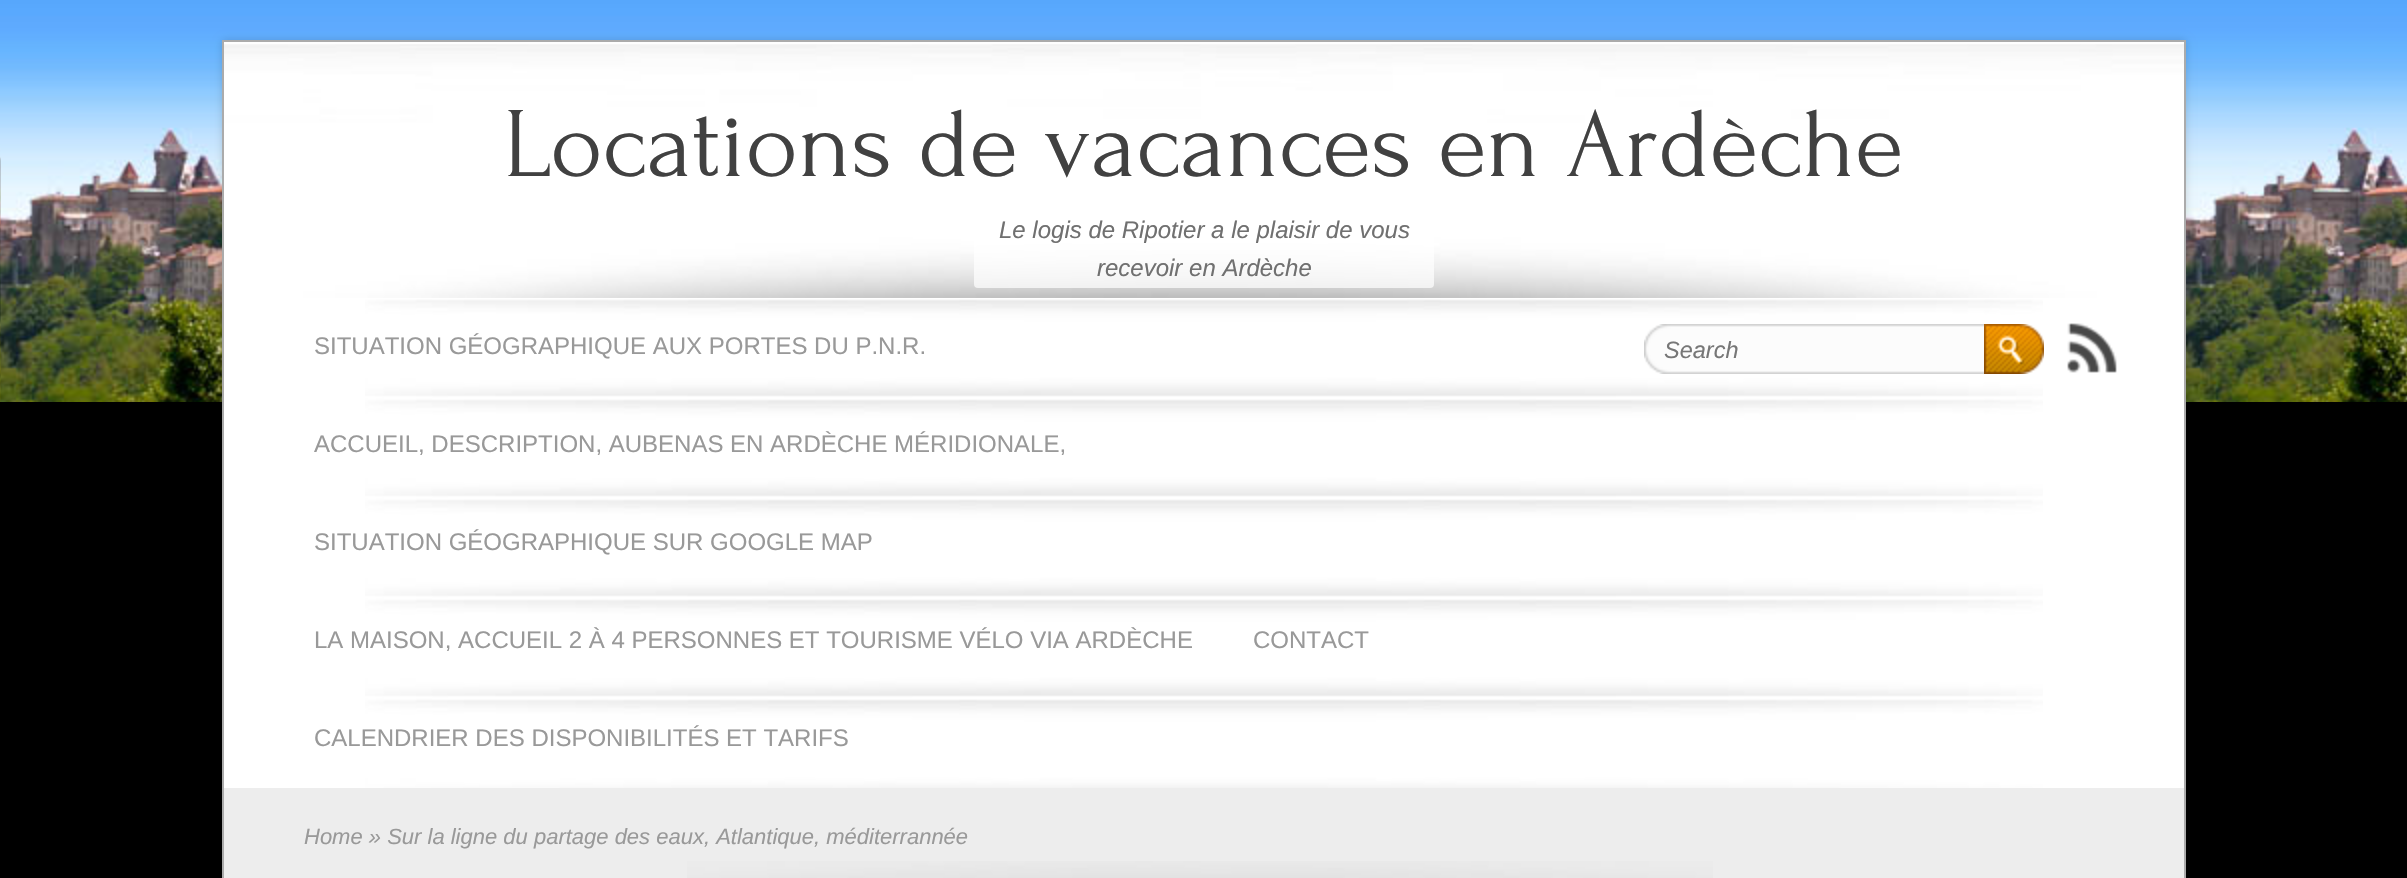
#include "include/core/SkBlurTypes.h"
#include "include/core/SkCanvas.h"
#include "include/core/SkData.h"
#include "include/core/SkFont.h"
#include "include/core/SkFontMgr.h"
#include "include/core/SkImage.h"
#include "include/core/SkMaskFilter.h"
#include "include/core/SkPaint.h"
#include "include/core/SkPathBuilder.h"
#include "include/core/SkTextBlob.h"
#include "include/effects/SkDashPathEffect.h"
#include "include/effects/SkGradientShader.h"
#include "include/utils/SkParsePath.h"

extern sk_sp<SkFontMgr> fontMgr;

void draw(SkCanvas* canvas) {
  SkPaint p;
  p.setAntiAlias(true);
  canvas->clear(SK_ColorBLACK);
  canvas->drawImageRect(SkImages::DeferredFromEncodedData(SkData::MakeFromFileName("images/1.png")), SkRect::MakeLTRB(0, 0, 2407, 402), SkSamplingOptions());
  p.setColor(SkColorSetARGB(38, 0, 0, 0));
  p.setMaskFilter(SkMaskFilter::MakeBlur(kNormal_SkBlurStyle, 4));
  canvas->drawRect(SkRect::MakeLTRB(222, 40, 2186, 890), p);
  p.setMaskFilter(nullptr);
  p.setColor(SK_ColorWHITE);
  canvas->drawRect(SkRect::MakeLTRB(224, 42, 2184, 788), p);
  p.setStyle(SkPaint::kStroke_Style);
  p.setStrokeWidth(2);
  p.setColor(SkColorSetRGB(171, 171, 171));
  canvas->drawRect(SkRect::MakeLTRB(223, 41, 2185, 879), p);
  canvas->drawImageRect(SkImages::DeferredFromEncodedData(SkData::MakeFromFileName("images/2.png")), SkRect::MakeLTRB(224, 44, 2184, 298), SkSamplingOptions());
  p.setStyle(SkPaint::kFill_Style);
  p.setColor(SkColorSetARGB(179, 255, 255, 255));
  canvas->drawRoundRect(SkRect::MakeLTRB(974, 212, 1434, 288), 4, 4, p);
  canvas->drawImageRect(SkImages::DeferredFromEncodedData(SkData::MakeFromFileName("images/3.png")), SkRect::MakeLTRB(365, 299, 2043, 788), SkSamplingOptions());
  canvas->drawImageRect(SkImages::DeferredFromEncodedData(SkData::MakeFromFileName("images/4.png")), SkRect::MakeLTRB(1644, 324, 1984, 374), SkSamplingOptions());
  canvas->drawImageRect(SkImages::DeferredFromEncodedData(SkData::MakeFromFileName("images/5.png")), SkRect::MakeLTRB(1984, 324, 2044, 374), SkSamplingOptions());
  canvas->drawImageRect(SkImages::DeferredFromEncodedData(SkData::MakeFromFileName("images/6.png")), SkRect::MakeLTRB(2067, 323, 2117, 373), SkSamplingOptions());
  p.setColor(SkColorSetRGB(237, 237, 237));
  canvas->drawRect(SkRect::MakeLTRB(224, 788, 2184, 878), p);
  canvas->drawImageRect(SkImages::DeferredFromEncodedData(SkData::MakeFromFileName("images/7.png")), SkRect::MakeLTRB(687, 861, 1713, 878), SkSamplingOptions());
  SkFont font1(fontMgr->matchFamilyStyle("Forum", SkFontStyle::Normal()), 100);
  font1.setSubpixel(true);
  p.setColor(SkColorSetRGB(65, 65, 65));
  canvas->drawString("Locations de vacances en Ardèche", 504, 176, font1, p);
  SkFont font2(fontMgr->matchFamilyStyle("Liberation Sans", SkFontStyle::Italic()), 24);
  font2.setSubpixel(true);
  p.setColor(SkColorSetRGB(112, 112, 112));
  canvas->drawString("Le logis de Ripotier a le plaisir de vous", 999, 238, font2, p);
  canvas->drawString("recevoir en Ardèche", 1097, 276, font2, p);
  SkFont font3(fontMgr->matchFamilyStyle("Liberation Sans", SkFontStyle::Normal()), 24);
  font3.setSubpixel(true);
  p.setColor(SkColorSetRGB(153, 153, 153));
  canvas->drawString("SITUATION GÉOGRAPHIQUE AUX PORTES DU P.N.R.", 314, 354, font3, p);
  canvas->drawString("ACCUEIL, DESCRIPTION, AUBENAS EN ARDÈCHE MÉRIDIONALE,", 314, 452, font3, p);
  canvas->drawString("SITUATION GÉOGRAPHIQUE SUR GOOGLE MAP", 314, 550, font3, p);
  canvas->drawString("LA MAISON, ACCUEIL 2 À 4 PERSONNES ET TOURISME VÉLO VIA ARDÈCHE", 314, 648, font3, p);
  canvas->drawString("CONTACT", 1253, 648, font3, p);
  canvas->drawString("CALENDRIER DES DISPONIBILITÉS ET TARIFS", 314, 746, font3, p);
  SkFont font4(fontMgr->matchFamilyStyle("Liberation Sans", SkFontStyle::Italic()), 23.5f);
  font4.setSubpixel(true);
  p.setColor(SkColorSetRGB(119, 119, 119));
  canvas->drawString("Search", 1664, 358, font4, p);
  SkFont font5(fontMgr->matchFamilyStyle("Liberation Sans", SkFontStyle::Italic()), 22);
  font5.setSubpixel(true);
  p.setColor(SkColorSetRGB(153, 153, 153));
  canvas->drawString("Home » Sur la ligne du partage des eaux, Atlantique, méditerrannée", 304, 844, font5, p);
}
